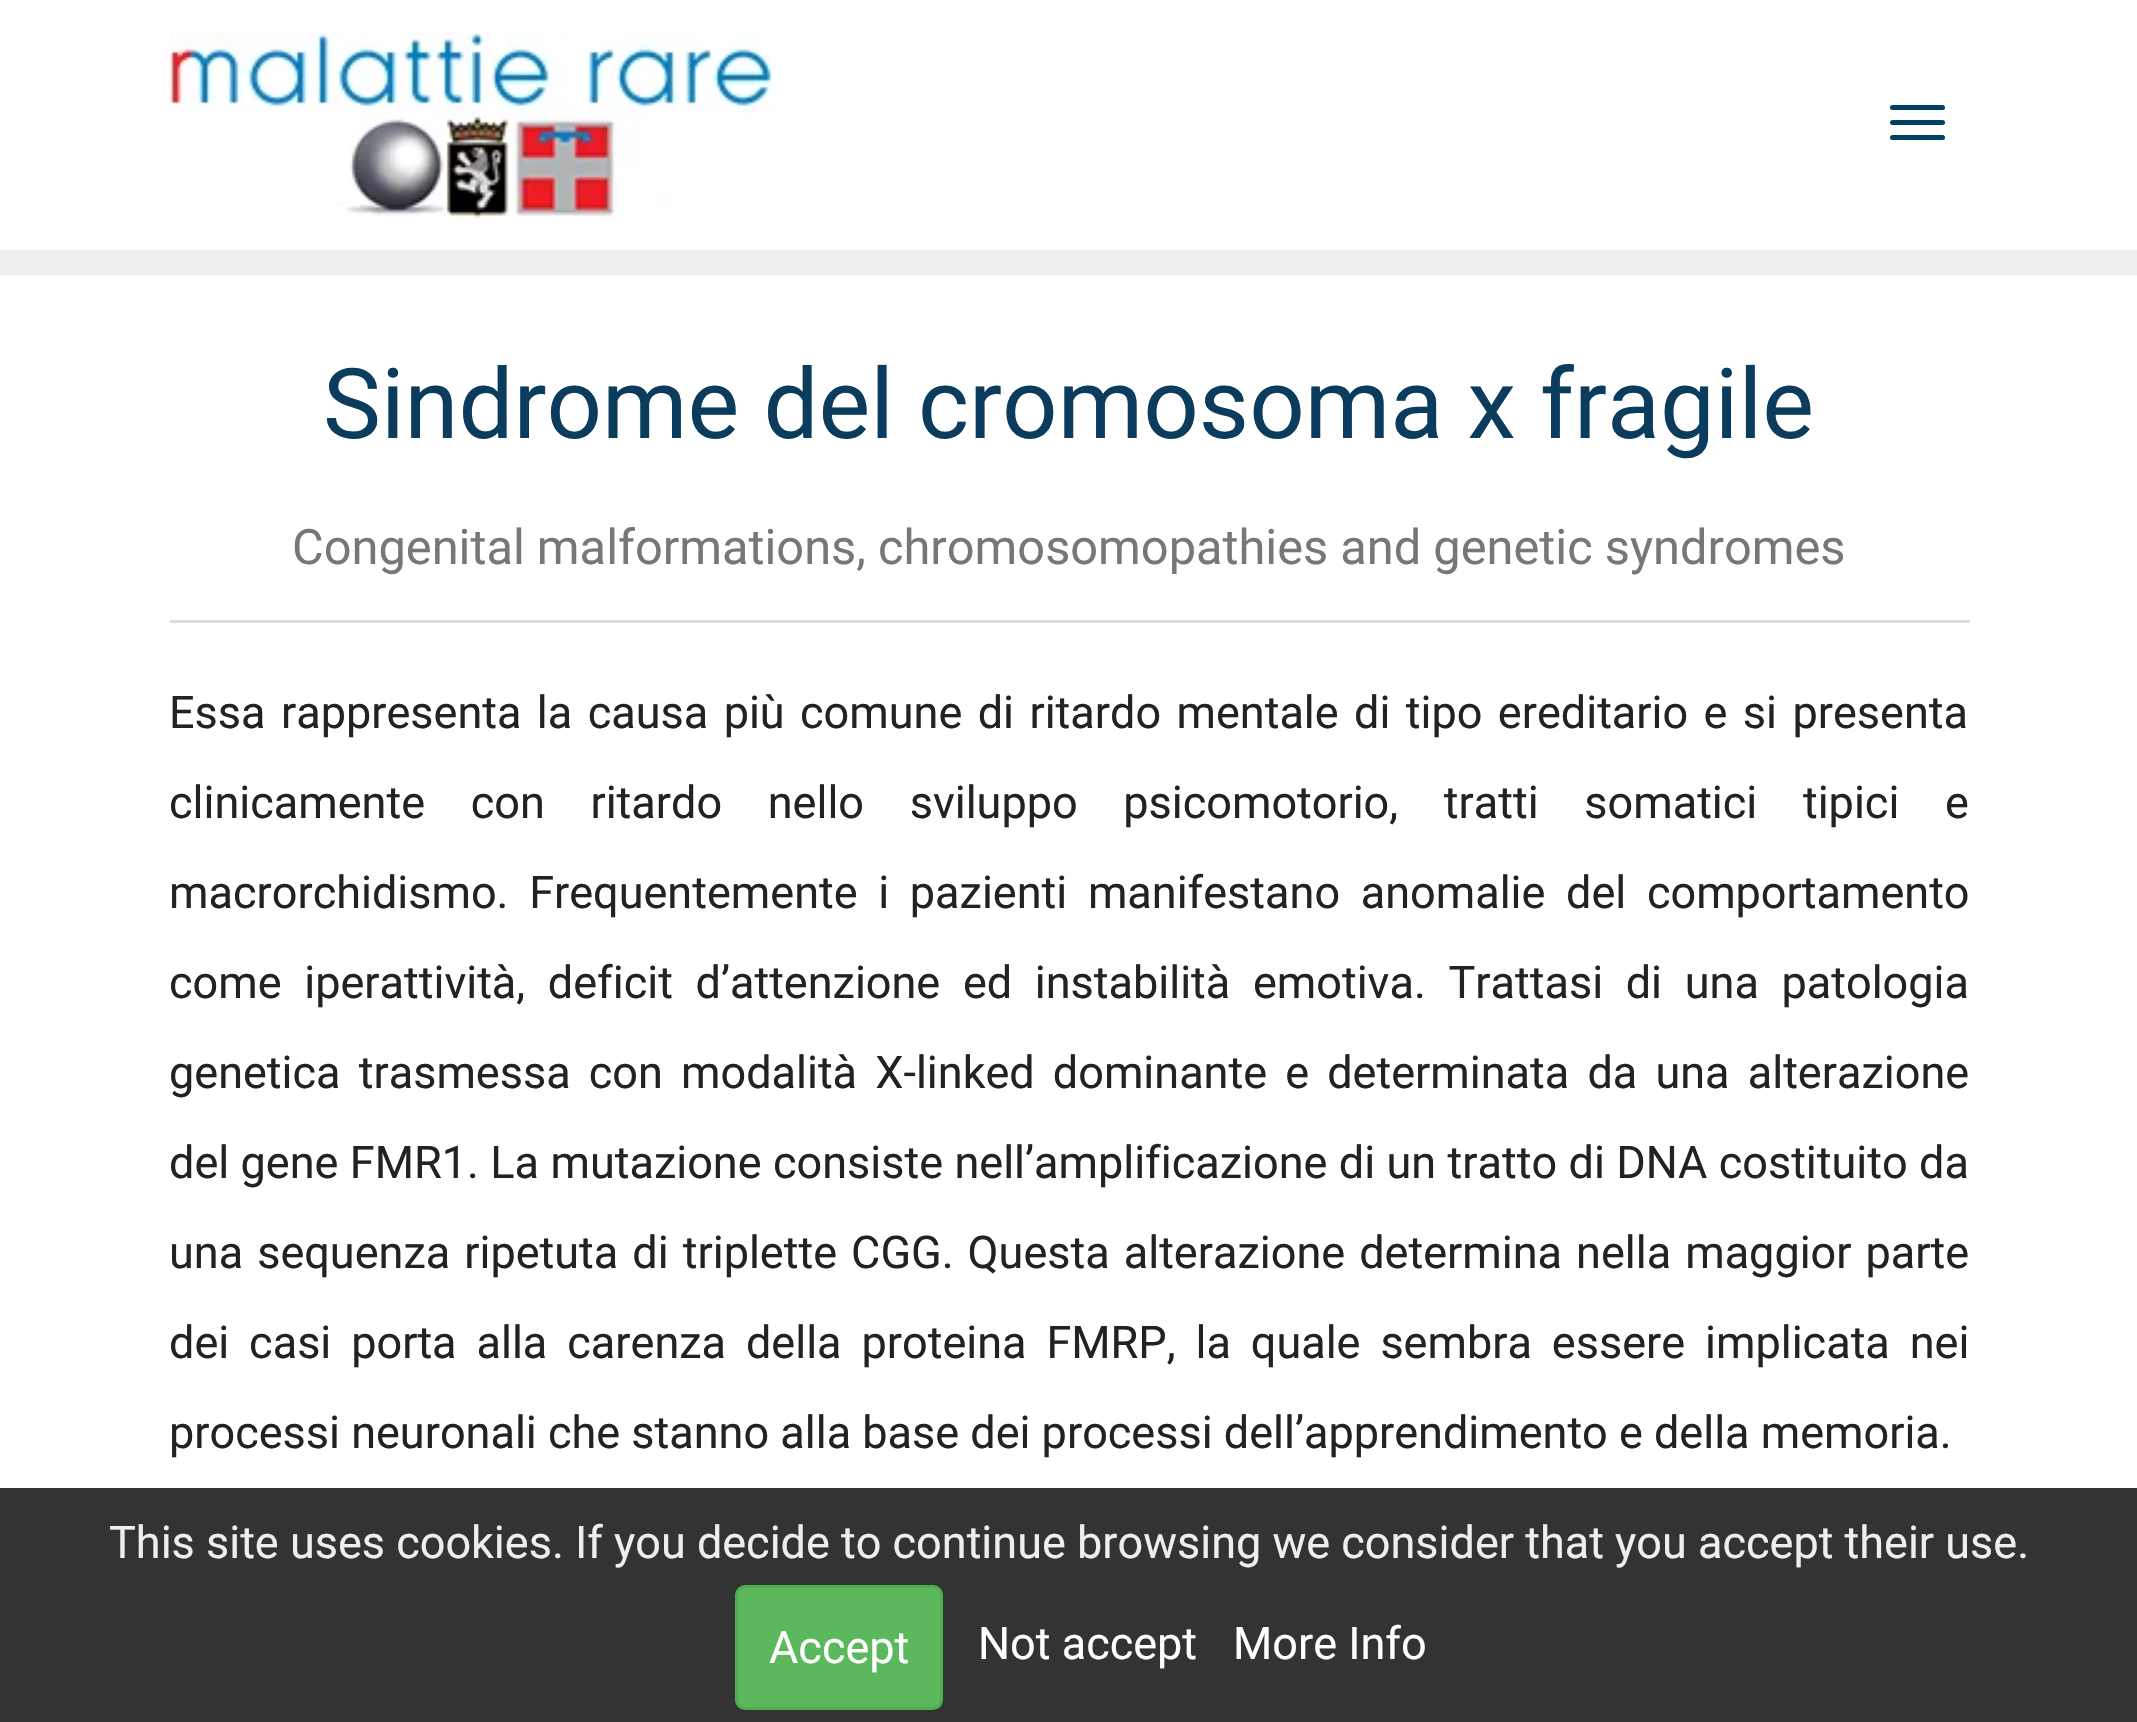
#include "include/core/SkBlurTypes.h"
#include "include/core/SkCanvas.h"
#include "include/core/SkData.h"
#include "include/core/SkFont.h"
#include "include/core/SkFontMgr.h"
#include "include/core/SkImage.h"
#include "include/core/SkMaskFilter.h"
#include "include/core/SkPaint.h"
#include "include/core/SkPathBuilder.h"
#include "include/core/SkTextBlob.h"
#include "include/effects/SkDashPathEffect.h"
#include "include/effects/SkGradientShader.h"
#include "include/utils/SkParsePath.h"

extern sk_sp<SkFontMgr> fontMgr;

void draw(SkCanvas* canvas) {
  SkPaint p;
  p.setAntiAlias(true);
  auto spacedText = [&](const char* s, float x, float y, const SkFont& font, const SkPaint& ink, float letter, float word) {
    std::vector<SkGlyphID> glyphs(font.countText(s, strlen(s), SkTextEncoding::kUTF8));
    std::vector<float> xs(glyphs.size());
    font.textToGlyphs(s, strlen(s), SkTextEncoding::kUTF8, glyphs);
    font.getXPos(glyphs, xs, x);
    float extra = 0;
    for (size_t i = 0; i < glyphs.size(); i++) {
      xs[i] += extra;
      extra += letter + word * (glyphs[i] == font.unicharToGlyph(' '));
    }
    canvas->drawTextBlob(SkTextBlob::MakeFromPosHGlyphs(glyphs, xs, y, font), 0, 0, ink);
  };
  canvas->clear(SK_ColorWHITE);
  p.setColor(SkColorSetRGB(238, 238, 238));
  canvas->drawRect(SkRect::MakeLTRB(0, 250, 2137, 275), p);
  canvas->drawImageRect(SkImages::DeferredFromEncodedData(SkData::MakeFromFileName("images/1.png")), SkRect::MakeLTRB(169, 32, 773, 218), SkSamplingOptions());
  p.setColor(SkColorSetRGB(0, 65, 102));
  canvas->drawRoundRect(SkRect::MakeLTRB(1890, 105, 1945, 110), 2.5f, 2.5f, p);
  canvas->drawRoundRect(SkRect::MakeLTRB(1890, 120, 1945, 125), 2.5f, 2.5f, p);
  canvas->drawRoundRect(SkRect::MakeLTRB(1890, 135, 1945, 140), 2.5f, 2.5f, p);
  p.setColor(SkColorSetRGB(221, 221, 221));
  canvas->drawRect(SkRect::MakeLTRB(170, 620, 1970, 623), p);
  p.setColor(SkColorSetRGB(51, 51, 51));
  canvas->drawRect(SkRect::MakeLTRB(0, 1488, 2137, 1722), p);
  p.setColor(SkColorSetRGB(92, 184, 92));
  canvas->drawRoundRect(SkRect::MakeLTRB(736.5f, 1586.5f, 941.5f, 1708.5f), 8.5f, 8.5f, p);
  p.setStyle(SkPaint::kStroke_Style);
  p.setStrokeWidth(3);
  p.setColor(SkColorSetRGB(76, 174, 76));
  canvas->drawRoundRect(SkRect::MakeLTRB(736.5f, 1586.5f, 941.5f, 1708.5f), 8.5f, 8.5f, p);
  SkFont font1(fontMgr->matchFamilyStyle("Roboto", SkFontStyle::Normal()), 97.5f);
  font1.setSubpixel(true);
  p.setStyle(SkPaint::kFill_Style);
  p.setColor(SkColorSetRGB(11, 60, 93));
  canvas->drawString("Sindrome del cromosoma x fragile", 323, 438, font1, p);
  SkFont font2(fontMgr->matchFamilyStyle("Roboto", SkFontStyle::Normal()), 48.75f);
  font2.setSubpixel(true);
  p.setColor(SkColorSetRGB(119, 119, 119));
  canvas->drawString("Congenital malformations, chromosomopathies and genetic syndromes", 292, 564, font2, p);
  SkFont font3(fontMgr->matchFamilyStyle("Roboto", SkFontStyle::Normal()), 45);
  font3.setSubpixel(true);
  p.setColor(SkColorSetRGB(34, 34, 34));
  spacedText("Essa rappresenta la causa più comune di ritardo mentale di tipo ereditario e si presenta", 169, 728, font3, p, 0, 4.25f);
  spacedText("clinicamente con ritardo nello sviluppo psicomotorio, tratti somatici tipici e", 169, 818, font3, p, 0, 34.5f);
  spacedText("macrorchidismo. Frequentemente i pazienti manifestano anomalie del comportamento", 169, 908, font3, p, 0, 9.5f);
  spacedText("come iperattività, deficit d’attenzione ed instabilità emotiva. Trattasi di una patologia", 169, 998, font3, p, 0, 11.5f);
  spacedText("genetica trasmessa con modalità X-linked dominante e determinata da una alterazione", 169, 1088, font3, p, 0, 7);
  spacedText("del gene FMR1. La mutazione consiste nell’amplificazione di un tratto di DNA costituito da", 169, 1178, font3, p, 0, 0.25f);
  spacedText("una sequenza ripetuta di triplette CGG. Questa alterazione determina nella maggior parte", 169, 1268, font3, p, 0, 2.9f);
  spacedText("dei casi porta alla carenza della proteina FMRP, la quale sembra essere implicata nei", 169, 1358, font3, p, 0, 8.75f);
  canvas->drawString("processi neuronali che stanno alla base dei processi dell’apprendimento e della memoria.", 169, 1448, font3, p);
  p.setColor(SkColorSetRGB(238, 238, 238));
  canvas->drawString("This site uses cookies. If you decide to continue browsing we consider that you accept their use.", 109, 1558, font3, p);
  p.setColor(SK_ColorWHITE);
  canvas->drawString("Accept", 769, 1663, font3, p);
  canvas->drawString("Not accept", 978, 1659, font3, p);
  canvas->drawString("More Info", 1233, 1659, font3, p);
}
